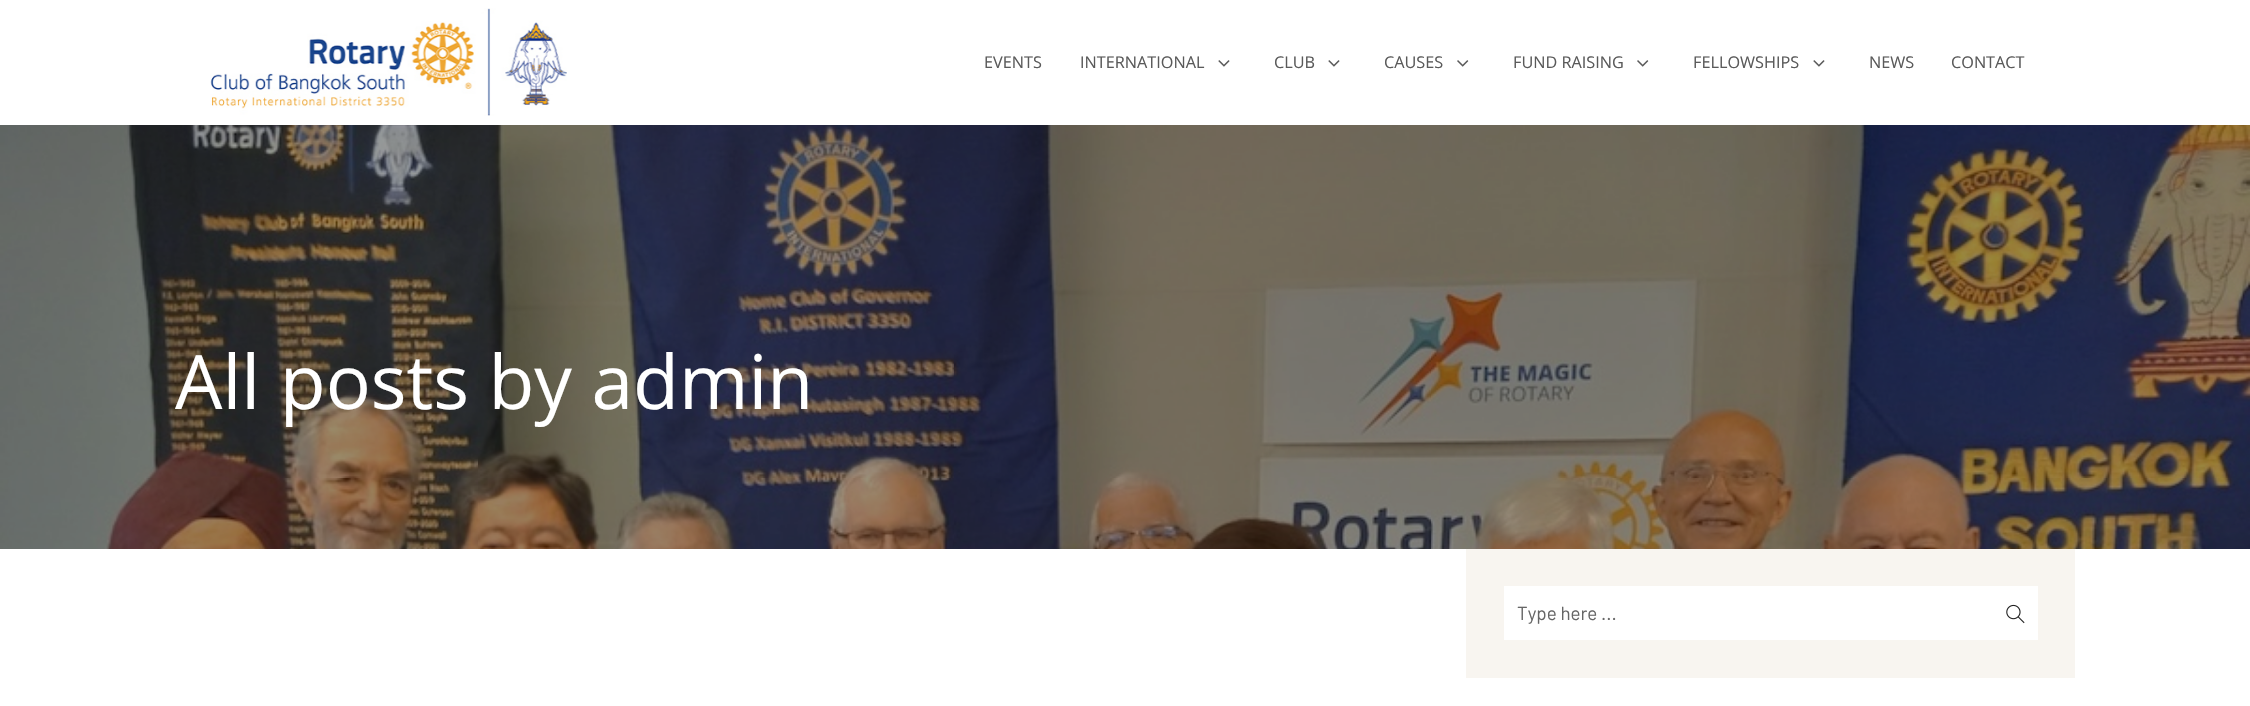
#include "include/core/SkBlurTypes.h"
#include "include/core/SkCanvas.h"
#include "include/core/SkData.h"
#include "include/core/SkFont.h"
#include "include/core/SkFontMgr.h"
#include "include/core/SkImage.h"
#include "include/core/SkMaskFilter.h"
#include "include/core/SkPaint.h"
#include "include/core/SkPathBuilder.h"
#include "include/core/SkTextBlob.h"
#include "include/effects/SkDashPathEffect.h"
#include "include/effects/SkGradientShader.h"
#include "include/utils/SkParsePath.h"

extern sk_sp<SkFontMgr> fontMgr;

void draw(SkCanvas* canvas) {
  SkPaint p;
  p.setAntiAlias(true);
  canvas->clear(SK_ColorWHITE);
  canvas->drawImageRect(SkImages::DeferredFromEncodedData(SkData::MakeFromFileName("images/1.png")), SkRect::MakeLTRB(210, 8, 567, 116), SkSamplingOptions());
  canvas->drawImageRect(SkImages::DeferredFromEncodedData(SkData::MakeFromFileName("images/2.png")), SkRect::MakeLTRB(1218, 60, 1230, 67), SkSamplingOptions());
  canvas->drawImageRect(SkImages::DeferredFromEncodedData(SkData::MakeFromFileName("images/2.png")), SkRect::MakeLTRB(1328, 60, 1340, 67), SkSamplingOptions());
  canvas->drawImageRect(SkImages::DeferredFromEncodedData(SkData::MakeFromFileName("images/3.png")), SkRect::MakeLTRB(1457, 60, 1469, 67), SkSamplingOptions());
  canvas->drawImageRect(SkImages::DeferredFromEncodedData(SkData::MakeFromFileName("images/3.png")), SkRect::MakeLTRB(1637, 60, 1649, 67), SkSamplingOptions());
  canvas->drawImageRect(SkImages::DeferredFromEncodedData(SkData::MakeFromFileName("images/2.png")), SkRect::MakeLTRB(1813, 60, 1825, 67), SkSamplingOptions());
  canvas->drawImageRect(SkImages::DeferredFromEncodedData(SkData::MakeFromFileName("images/4.png")), SkRect::MakeLTRB(0, 125, 2250, 549), SkSamplingOptions());
  p.setColor(SkColorSetRGB(248, 245, 240));
  canvas->drawRect(SkRect::MakeLTRB(1466, 549, 2075, 678), p);
  p.setColor(SK_ColorWHITE);
  canvas->drawRect(SkRect::MakeLTRB(1504, 586, 2038, 640), p);
  canvas->drawImageRect(SkImages::DeferredFromEncodedData(SkData::MakeFromFileName("images/5.png")), SkRect::MakeLTRB(2006, 604, 2025, 624), SkSamplingOptions());
  SkFont font1(fontMgr->matchFamilyStyle("Open Sans", SkFontStyle::Normal()), 16.25f);
  font1.setSubpixel(true);
  p.setColor(SkColorSetRGB(90, 90, 90));
  canvas->drawString("EVENTS", 984, 68, font1, p);
  canvas->drawString("INTERNATIONAL", 1080, 68, font1, p);
  canvas->drawString("CLUB", 1274, 68, font1, p);
  canvas->drawString("CAUSES", 1384, 68, font1, p);
  canvas->drawString("FUND RAISING", 1513, 68, font1, p);
  canvas->drawString("FELLOWSHIPS", 1693, 68, font1, p);
  canvas->drawString("NEWS", 1869, 68, font1, p);
  canvas->drawString("CONTACT", 1951, 68, font1, p);
  SkFont font2(fontMgr->matchFamilyStyle("Open Sans", SkFontStyle::Normal()), 75);
  font2.setSubpixel(true);
  p.setColor(SK_ColorWHITE);
  canvas->drawString("All posts by admin", 175, 409, font2, p);
  SkFont font3(fontMgr->matchFamilyStyle("Barlow", SkFontStyle::Normal()), 18.75f);
  font3.setSubpixel(true);
  p.setColor(SkColorSetRGB(102, 102, 102));
  canvas->drawString("Type here ...", 1517, 620, font3, p);
}
